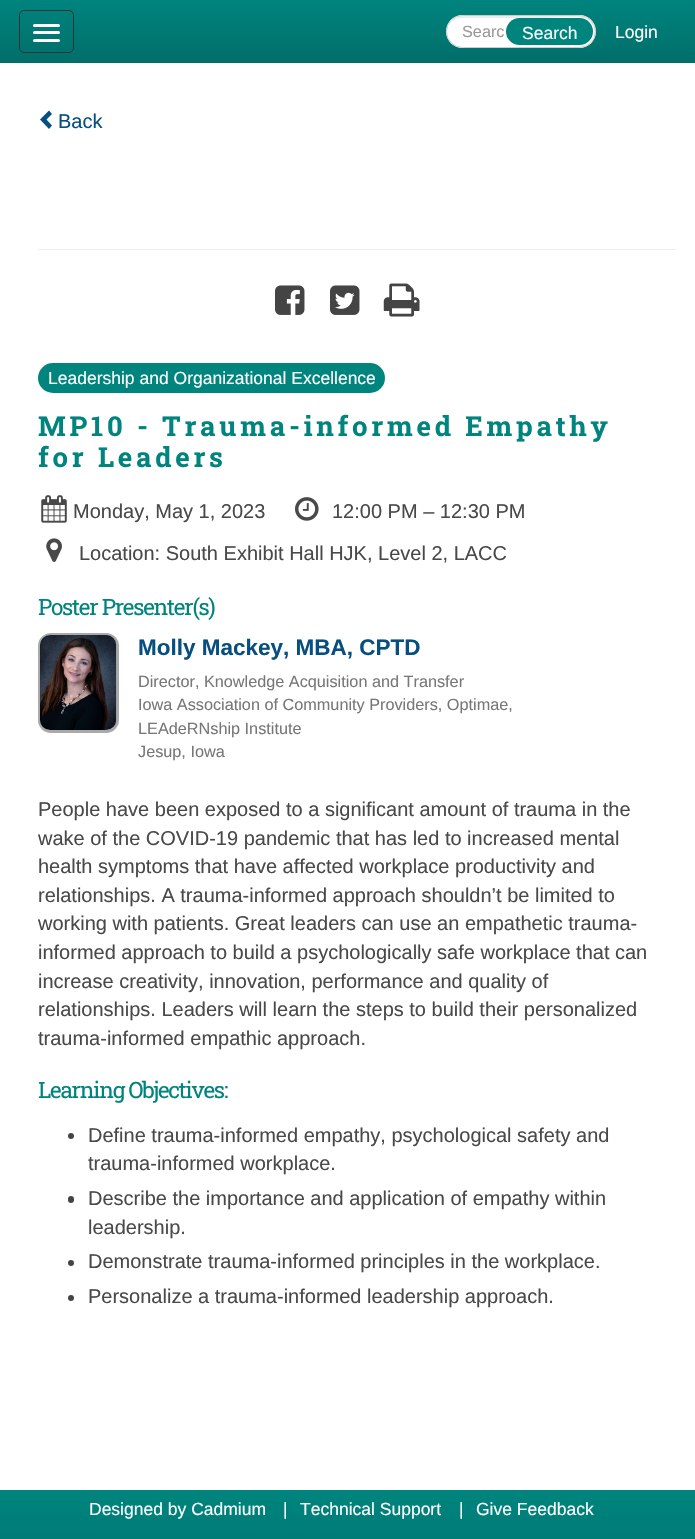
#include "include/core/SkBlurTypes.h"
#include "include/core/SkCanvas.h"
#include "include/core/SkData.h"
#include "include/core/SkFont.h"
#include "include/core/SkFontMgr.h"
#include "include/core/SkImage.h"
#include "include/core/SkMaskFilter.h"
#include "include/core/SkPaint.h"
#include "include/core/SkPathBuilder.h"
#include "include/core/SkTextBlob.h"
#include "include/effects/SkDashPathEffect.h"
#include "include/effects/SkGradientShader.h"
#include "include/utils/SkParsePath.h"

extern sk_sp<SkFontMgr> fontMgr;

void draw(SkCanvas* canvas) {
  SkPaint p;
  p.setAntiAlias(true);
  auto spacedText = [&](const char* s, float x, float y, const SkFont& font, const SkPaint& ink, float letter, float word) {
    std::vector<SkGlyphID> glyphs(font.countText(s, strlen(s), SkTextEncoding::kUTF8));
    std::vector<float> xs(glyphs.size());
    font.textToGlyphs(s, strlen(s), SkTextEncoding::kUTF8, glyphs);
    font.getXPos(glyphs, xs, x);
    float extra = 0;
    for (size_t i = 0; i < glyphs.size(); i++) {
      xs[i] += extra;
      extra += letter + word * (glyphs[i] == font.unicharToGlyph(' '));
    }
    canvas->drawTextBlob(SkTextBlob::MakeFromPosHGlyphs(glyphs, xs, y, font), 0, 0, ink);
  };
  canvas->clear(SK_ColorWHITE);
  {
    const SkColor colors[] = {SkColorSetRGB(0, 132, 126), SkColorSetRGB(1, 110, 105)};
    const float stops[] = {0, 1};
    const SkPoint ends[] = {{348, 0}, {348, 63}};
    p.setShader(SkGradientShader::MakeLinear(ends, colors, stops, 2, SkTileMode::kClamp));
    p.setAlpha(255);
  }
  canvas->drawRect(SkRect::MakeLTRB(0, 0, 695, 63), p);
  p.setStyle(SkPaint::kStroke_Style);
  p.setStrokeWidth(1);
  p.setShader(nullptr);
  p.setColor(SkColorSetRGB(51, 51, 51));
  canvas->drawRoundRect(SkRect::MakeLTRB(19.5f, 10.5f, 73.5f, 52.5f), 4.5f, 4.5f, p);
  p.setStyle(SkPaint::kFill_Style);
  p.setColor(SK_ColorWHITE);
  canvas->drawRoundRect(SkRect::MakeLTRB(33, 24, 60, 27), 1.5f, 1.5f, p);
  canvas->drawRoundRect(SkRect::MakeLTRB(33, 31, 60, 34), 1.5f, 1.5f, p);
  canvas->drawRoundRect(SkRect::MakeLTRB(33, 39, 60, 42), 1.5f, 1.5f, p);
  canvas->drawRoundRect(SkRect::MakeLTRB(446, 15, 596, 48), 16.5f, 16.5f, p);
  p.setColor(SkColorSetRGB(236, 236, 236));
  canvas->drawPath(SkPathBuilder().moveTo(462, 18).lineTo(544, 18).lineTo(578, 17).lineTo(586, 19).cubicTo(592, 22, 596, 28, 594, 35).lineTo(595, 31).cubicTo(595, 23, 588, 16, 580, 16).lineTo(463, 16).cubicTo(455, 16, 449, 22, 448, 29).cubicTo(449, 23, 454, 18, 462, 18).close().detach(), p);
  p.setStyle(SkPaint::kStroke_Style);
  p.setColor(SkColorSetRGB(204, 204, 204));
  canvas->drawRoundRect(SkRect::MakeLTRB(446.5f, 15.5f, 595.5f, 47.5f), 16, 16, p);
  p.setStyle(SkPaint::kFill_Style);
  p.setColor(SkColorSetRGB(0, 132, 126));
  canvas->drawRoundRect(SkRect::MakeLTRB(506, 18, 593, 45), 13.5f, 13.5f, p);
  p.setColor(SkColorSetRGB(6, 79, 128));
  canvas->drawPath(SkPathBuilder().moveTo(52, 114).lineTo(46.5f, 119.5f).lineTo(52, 125.5f).lineTo(49, 129).lineTo(40, 119.5f).lineTo(49, 110.5f).close().detach(), p);
  p.setColor(SkColorSetRGB(238, 238, 238));
  canvas->drawRect(SkRect::MakeLTRB(38, 249, 676, 250), p);
  canvas->drawImageRect(SkImages::DeferredFromEncodedData(SkData::MakeFromFileName("images/1.png")), SkRect::MakeLTRB(275, 285, 305, 315), SkSamplingOptions());
  canvas->drawImageRect(SkImages::DeferredFromEncodedData(SkData::MakeFromFileName("images/2.png")), SkRect::MakeLTRB(330, 285, 360, 315), SkSamplingOptions());
  canvas->drawImageRect(SkImages::DeferredFromEncodedData(SkData::MakeFromFileName("images/3.png")), SkRect::MakeLTRB(383, 283, 420, 317), SkSamplingOptions());
  p.setColor(SkColorSetRGB(0, 132, 126));
  canvas->drawRoundRect(SkRect::MakeLTRB(38, 363, 385, 393), 15, 15, p);
  canvas->drawImageRect(SkImages::DeferredFromEncodedData(SkData::MakeFromFileName("images/4.png")), SkRect::MakeLTRB(41, 495, 67, 523), SkSamplingOptions());
  canvas->drawImageRect(SkImages::DeferredFromEncodedData(SkData::MakeFromFileName("images/5.png")), SkRect::MakeLTRB(295, 497, 319, 521), SkSamplingOptions());
  canvas->drawImageRect(SkImages::DeferredFromEncodedData(SkData::MakeFromFileName("images/6.png")), SkRect::MakeLTRB(46, 538, 62, 562), SkSamplingOptions());
  p.setStyle(SkPaint::kStroke_Style);
  p.setStrokeWidth(3);
  p.setColor(SkColorSetRGB(169, 169, 169));
  canvas->drawRoundRect(SkRect::MakeLTRB(39.5f, 634.5f, 117.5f, 731.5f), 11.5f, 11.5f, p);
  canvas->drawImageRect(SkImages::DeferredFromEncodedData(SkData::MakeFromFileName("images/7.png")), SkRect::MakeLTRB(40, 635, 117, 730), SkSamplingOptions());
  p.setStyle(SkPaint::kFill_Style);
  p.setColor(SkColorSetRGB(68, 68, 68));
  canvas->drawCircle(71, 1136, 3, p);
  canvas->drawRoundRect(SkRect::MakeLTRB(68, 1196, 74, 1203), 3, 3, p);
  canvas->drawCircle(71, 1263, 3, p);
  canvas->drawCircle(71, 1298, 3, p);
  {
    const SkColor colors[] = {SkColorSetRGB(0, 132, 126), SkColorSetRGB(0, 112, 107)};
    const float stops[] = {0, 1};
    const SkPoint ends[] = {{348, 1490}, {348, 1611}};
    p.setShader(SkGradientShader::MakeLinear(ends, colors, stops, 2, SkTileMode::kClamp));
    p.setAlpha(255);
  }
  canvas->drawRect(SkRect::MakeLTRB(0, 1490, 695, 1539), p);
  SkFont font1(fontMgr->matchFamilyStyle("Liberation Sans", SkFontStyle::Normal()), 16.25f);
  font1.setSubpixel(true);
  p.setShader(nullptr);
  p.setColor(SkColorSetRGB(153, 153, 153));
  canvas->drawString("Searc", 462, 37, font1, p);
  SkFont font2(fontMgr->matchFamilyStyle("Liberation Sans", SkFontStyle::Normal()), 17.5f);
  font2.setSubpixel(true);
  p.setColor(SkColorSetRGB(254, 254, 254));
  canvas->drawString("Search", 522, 39, font2, p);
  canvas->drawString("Login", 615, 38, font2, p);
  SkFont font3(fontMgr->matchFamilyStyle("Liberation Sans", SkFontStyle::Normal()), 20);
  font3.setSubpixel(true);
  p.setColor(SkColorSetRGB(6, 79, 128));
  canvas->drawString("Back", 58, 128, font3, p);
  p.setColor(SkColorSetRGB(254, 254, 254));
  canvas->drawString("Leadership and Organizational Excellence", 48, 384, font2, p);
  SkFont font4(fontMgr->matchFamilyStyle("Roboto Slab", SkFontStyle::Bold()), 27.5f);
  font4.setSubpixel(true);
  p.setColor(SkColorSetRGB(0, 132, 126));
  spacedText("MP10 - Trauma-informed Empathy", 38, 436, font4, p, 3.75f, 0);
  spacedText("for Leaders", 38, 467, font4, p, 3.75f, 0);
  p.setColor(SkColorSetRGB(73, 73, 73));
  canvas->drawString("Monday, May 1, 2023", 73, 518, font3, p);
  canvas->drawString("12:00 PM – 12:30 PM", 332, 518, font3, p);
  canvas->drawString("Location: South Exhibit Hall HJK, Level 2, LACC", 79, 560, font3, p);
  SkFont font5(fontMgr->matchFamilyStyle("Roboto Slab", SkFontStyle::Normal()), 22.5f);
  font5.setSubpixel(true);
  p.setColor(SkColorSetRGB(0, 132, 126));
  spacedText("Poster Presenter(s)", 38, 615, font5, p, -1.25f, 0);
  SkFont font6(fontMgr->matchFamilyStyle("Liberation Sans", SkFontStyle::Bold()), 22.5f);
  font6.setSubpixel(true);
  p.setColor(SkColorSetRGB(6, 79, 128));
  canvas->drawString("Molly Mackey, MBA, CPTD", 138, 655, font6, p);
  p.setColor(SkColorSetRGB(119, 119, 119));
  canvas->drawString("Director, Knowledge Acquisition and Transfer", 138, 687, font1, p);
  canvas->drawString("Iowa Association of Community Providers, Optimae,", 138, 710, font1, p);
  canvas->drawString("LEAdeRNship Institute", 138, 734, font1, p);
  canvas->drawString("Jesup, Iowa", 138, 757, font1, p);
  p.setColor(SkColorSetRGB(73, 73, 73));
  canvas->drawString("People have been exposed to a significant amount of trauma in the", 38, 816, font3, p);
  canvas->drawString("wake of the COVID-19 pandemic that has led to increased mental", 38, 845, font3, p);
  canvas->drawString("health symptoms that have affected workplace productivity and", 38, 873, font3, p);
  canvas->drawString("relationships. A trauma-informed approach shouldn’t be limited to", 38, 902, font3, p);
  canvas->drawString("working with patients. Great leaders can use an empathetic trauma-", 38, 930, font3, p);
  canvas->drawString("informed approach to build a psychologically safe workplace that can", 38, 959, font3, p);
  canvas->drawString("increase creativity, innovation, performance and quality of", 38, 988, font3, p);
  canvas->drawString("relationships. Leaders will learn the steps to build their personalized", 38, 1016, font3, p);
  canvas->drawString("trauma-informed empathic approach.", 38, 1045, font3, p);
  p.setColor(SkColorSetRGB(0, 132, 126));
  spacedText("Learning Objectives:", 38, 1098, font5, p, -1.25f, 0);
  p.setColor(SkColorSetRGB(73, 73, 73));
  canvas->drawString("Define trauma-informed empathy, psychological safety and", 88, 1142, font3, p);
  canvas->drawString("trauma-informed workplace.", 88, 1170, font3, p);
  canvas->drawString("Describe the importance and application of empathy within", 88, 1205, font3, p);
  canvas->drawString("leadership.", 88, 1234, font3, p);
  canvas->drawString("Demonstrate trauma-informed principles in the workplace.", 88, 1268, font3, p);
  canvas->drawString("Personalize a trauma-informed leadership approach.", 88, 1303, font3, p);
  p.setColor(SkColorSetRGB(254, 254, 254));
  canvas->drawString("Designed by Cadmium", 89, 1515, font2, p);
  canvas->drawString("|", 283, 1515, font2, p);
  canvas->drawString("Technical Support", 300, 1515, font2, p);
  canvas->drawString("|", 459, 1515, font2, p);
  canvas->drawString("Give Feedback", 476, 1515, font2, p);
}
